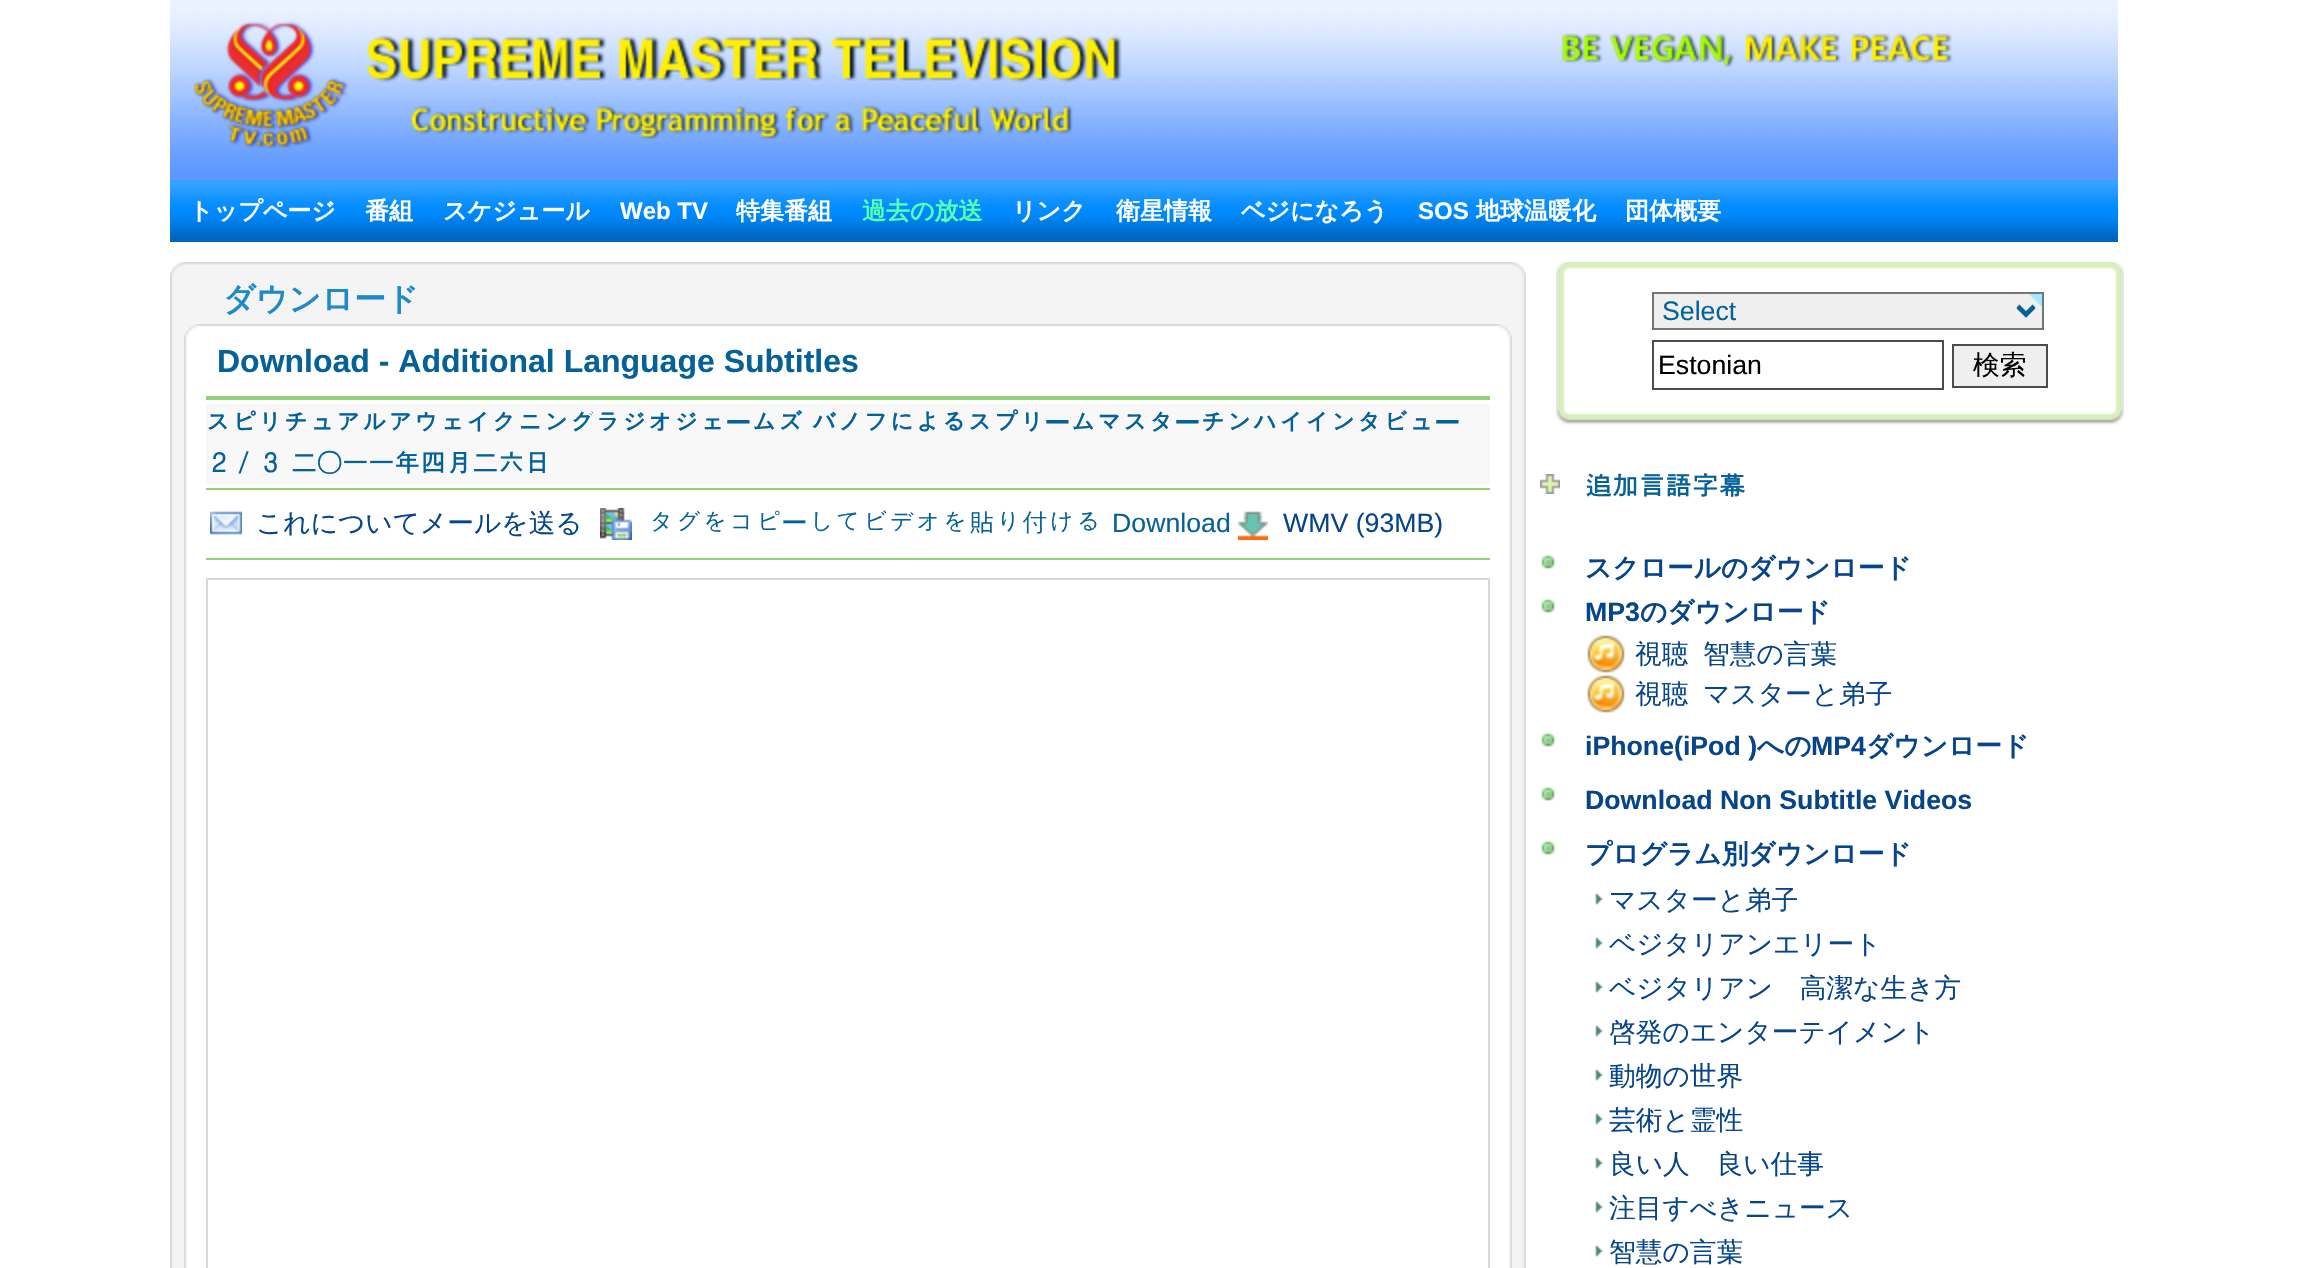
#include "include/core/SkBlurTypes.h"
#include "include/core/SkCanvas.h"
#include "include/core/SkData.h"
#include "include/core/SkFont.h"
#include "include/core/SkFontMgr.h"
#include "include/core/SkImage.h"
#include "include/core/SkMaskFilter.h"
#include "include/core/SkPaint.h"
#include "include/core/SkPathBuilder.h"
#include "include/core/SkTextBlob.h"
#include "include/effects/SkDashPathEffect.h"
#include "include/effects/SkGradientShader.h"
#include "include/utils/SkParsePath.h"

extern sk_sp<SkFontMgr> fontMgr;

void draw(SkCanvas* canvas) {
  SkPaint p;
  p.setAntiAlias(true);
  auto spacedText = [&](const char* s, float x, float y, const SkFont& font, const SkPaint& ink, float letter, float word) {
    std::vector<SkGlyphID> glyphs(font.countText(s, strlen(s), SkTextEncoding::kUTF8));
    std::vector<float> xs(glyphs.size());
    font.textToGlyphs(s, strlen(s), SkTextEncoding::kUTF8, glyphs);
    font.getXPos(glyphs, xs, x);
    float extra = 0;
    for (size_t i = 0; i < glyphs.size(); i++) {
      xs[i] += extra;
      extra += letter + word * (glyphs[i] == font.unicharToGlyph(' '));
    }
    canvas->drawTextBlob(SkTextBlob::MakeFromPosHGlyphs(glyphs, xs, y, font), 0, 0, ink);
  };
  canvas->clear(SK_ColorWHITE);
  canvas->drawImageRect(SkImages::DeferredFromEncodedData(SkData::MakeFromFileName("images/1.png")), SkRect::MakeLTRB(170, 0, 2118, 180), SkSamplingOptions());
  canvas->drawImageRect(SkImages::DeferredFromEncodedData(SkData::MakeFromFileName("images/2.png")), SkRect::MakeLTRB(193, 21, 1122, 149), SkSamplingOptions());
  canvas->drawImageRect(SkImages::DeferredFromEncodedData(SkData::MakeFromFileName("images/3.png")), SkRect::MakeLTRB(1561, 33, 1953, 68), SkSamplingOptions());
  canvas->drawImageRect(SkImages::DeferredFromEncodedData(SkData::MakeFromFileName("images/4.png")), SkRect::MakeLTRB(170, 180, 2118, 242), SkSamplingOptions());
  canvas->drawImageRect(SkImages::DeferredFromEncodedData(SkData::MakeFromFileName("images/5.png")), SkRect::MakeLTRB(170, 262, 184, 276), SkSamplingOptions());
  canvas->drawImageRect(SkImages::DeferredFromEncodedData(SkData::MakeFromFileName("images/6.png")), SkRect::MakeLTRB(184, 262, 1512, 276), SkSamplingOptions());
  canvas->drawImageRect(SkImages::DeferredFromEncodedData(SkData::MakeFromFileName("images/7.png")), SkRect::MakeLTRB(1512, 262, 1526, 276), SkSamplingOptions());
  canvas->drawImageRect(SkImages::DeferredFromEncodedData(SkData::MakeFromFileName("images/8.png")), SkRect::MakeLTRB(170, 276, 184, 1268), SkSamplingOptions());
  p.setColor(SkColorSetRGB(244, 244, 244));
  canvas->drawRect(SkRect::MakeLTRB(184, 276, 1512, 333), p);
  canvas->drawImageRect(SkImages::DeferredFromEncodedData(SkData::MakeFromFileName("images/9.png")), SkRect::MakeLTRB(184, 324, 198, 338), SkSamplingOptions());
  canvas->drawImageRect(SkImages::DeferredFromEncodedData(SkData::MakeFromFileName("images/10.png")), SkRect::MakeLTRB(198, 324, 1498, 338), SkSamplingOptions());
  canvas->drawImageRect(SkImages::DeferredFromEncodedData(SkData::MakeFromFileName("images/11.png")), SkRect::MakeLTRB(1498, 324, 1512, 338), SkSamplingOptions());
  canvas->drawImageRect(SkImages::DeferredFromEncodedData(SkData::MakeFromFileName("images/12.png")), SkRect::MakeLTRB(184, 338, 198, 1268), SkSamplingOptions());
  p.setColor(SkColorSetRGB(149, 208, 118));
  canvas->drawRect(SkRect::MakeLTRB(206, 396, 1490, 400), p);
  p.setColor(SkColorSetRGB(248, 248, 249));
  canvas->drawRect(SkRect::MakeLTRB(206, 404, 1490, 484), p);
  p.setColor(SkColorSetRGB(149, 208, 118));
  canvas->drawRect(SkRect::MakeLTRB(206, 488, 1490, 490), p);
  canvas->drawImageRect(SkImages::DeferredFromEncodedData(SkData::MakeFromFileName("images/13.png")), SkRect::MakeLTRB(210, 511, 242, 535), SkSamplingOptions());
  canvas->drawImageRect(SkImages::DeferredFromEncodedData(SkData::MakeFromFileName("images/14.png")), SkRect::MakeLTRB(600, 508, 632, 540), SkSamplingOptions());
  canvas->drawImageRect(SkImages::DeferredFromEncodedData(SkData::MakeFromFileName("images/15.png")), SkRect::MakeLTRB(1238, 511, 1268, 540), SkSamplingOptions());
  canvas->drawRect(SkRect::MakeLTRB(206, 558, 1490, 560), p);
  p.setColor(SkColorSetRGB(215, 215, 215));
  canvas->drawRect(SkRect::MakeLTRB(206, 578, 1490, 580), p);
  canvas->drawRect(SkRect::MakeLTRB(1488, 578, 1490, 1268), p);
  canvas->drawRect(SkRect::MakeLTRB(206, 578, 208, 1268), p);
  canvas->drawImageRect(SkImages::DeferredFromEncodedData(SkData::MakeFromFileName("images/16.png")), SkRect::MakeLTRB(1498, 338, 1512, 1268), SkSamplingOptions());
  canvas->drawImageRect(SkImages::DeferredFromEncodedData(SkData::MakeFromFileName("images/17.png")), SkRect::MakeLTRB(1512, 276, 1526, 1268), SkSamplingOptions());
  canvas->drawImageRect(SkImages::DeferredFromEncodedData(SkData::MakeFromFileName("images/18.png")), SkRect::MakeLTRB(1556, 262, 1568, 272), SkSamplingOptions());
  canvas->drawImageRect(SkImages::DeferredFromEncodedData(SkData::MakeFromFileName("images/19.png")), SkRect::MakeLTRB(1568, 262, 2112, 269), SkSamplingOptions());
  canvas->drawImageRect(SkImages::DeferredFromEncodedData(SkData::MakeFromFileName("images/20.png")), SkRect::MakeLTRB(2112, 262, 2124, 272), SkSamplingOptions());
  canvas->drawImageRect(SkImages::DeferredFromEncodedData(SkData::MakeFromFileName("images/21.png")), SkRect::MakeLTRB(1556, 272, 1565, 410), SkSamplingOptions());
  p.setColor(SkColorSetRGB(239, 239, 239));
  canvas->drawRect(SkRect::MakeLTRB(1654, 294, 2042, 328), p);
  canvas->drawImageRect(SkImages::DeferredFromEncodedData(SkData::MakeFromFileName("images/22.png")), SkRect::MakeLTRB(2016, 294, 2042, 317), SkSamplingOptions());
  p.setStyle(SkPaint::kStroke_Style);
  p.setStrokeWidth(2);
  p.setColor(SkColorSetRGB(118, 118, 118));
  canvas->drawRect(SkRect::MakeLTRB(1653, 293, 2043, 329), p);
  p.setStrokeWidth(4);
  p.setColor(SkColorSetRGB(5, 97, 151));
  canvas->drawPath(SkPathBuilder().moveTo(2018, 307).lineTo(2026, 315).lineTo(2034, 307).detach(), p);
  p.setStrokeWidth(2);
  p.setColor(SkColorSetRGB(76, 76, 76));
  canvas->drawRect(SkRect::MakeLTRB(1653, 341, 1943, 389), p);
  p.setStyle(SkPaint::kFill_Style);
  p.setColor(SkColorSetRGB(239, 239, 239));
  canvas->drawRect(SkRect::MakeLTRB(1953, 345, 2047, 387), p);
  p.setStyle(SkPaint::kStroke_Style);
  p.setColor(SkColorSetRGB(76, 76, 76));
  canvas->drawRect(SkRect::MakeLTRB(1953, 345, 2047, 387), p);
  canvas->drawImageRect(SkImages::DeferredFromEncodedData(SkData::MakeFromFileName("images/23.png")), SkRect::MakeLTRB(2115, 272, 2124, 410), SkSamplingOptions());
  canvas->drawImageRect(SkImages::DeferredFromEncodedData(SkData::MakeFromFileName("images/24.png")), SkRect::MakeLTRB(1556, 410, 1568, 425), SkSamplingOptions());
  canvas->drawImageRect(SkImages::DeferredFromEncodedData(SkData::MakeFromFileName("images/25.png")), SkRect::MakeLTRB(1568, 413, 2112, 425), SkSamplingOptions());
  canvas->drawImageRect(SkImages::DeferredFromEncodedData(SkData::MakeFromFileName("images/26.png")), SkRect::MakeLTRB(2112, 410, 2124, 425), SkSamplingOptions());
  canvas->drawImageRect(SkImages::DeferredFromEncodedData(SkData::MakeFromFileName("images/27.png")), SkRect::MakeLTRB(1540, 474, 1560, 494), SkSamplingOptions());
  canvas->drawImageRect(SkImages::DeferredFromEncodedData(SkData::MakeFromFileName("images/28.png")), SkRect::MakeLTRB(1541, 555, 1555, 569), SkSamplingOptions());
  canvas->drawImageRect(SkImages::DeferredFromEncodedData(SkData::MakeFromFileName("images/28.png")), SkRect::MakeLTRB(1541, 599, 1555, 613), SkSamplingOptions());
  canvas->drawImageRect(SkImages::DeferredFromEncodedData(SkData::MakeFromFileName("images/29.png")), SkRect::MakeLTRB(1587, 635, 1625, 673), SkSamplingOptions());
  canvas->drawImageRect(SkImages::DeferredFromEncodedData(SkData::MakeFromFileName("images/29.png")), SkRect::MakeLTRB(1587, 675, 1625, 713), SkSamplingOptions());
  canvas->drawImageRect(SkImages::DeferredFromEncodedData(SkData::MakeFromFileName("images/28.png")), SkRect::MakeLTRB(1541, 733, 1555, 747), SkSamplingOptions());
  canvas->drawImageRect(SkImages::DeferredFromEncodedData(SkData::MakeFromFileName("images/28.png")), SkRect::MakeLTRB(1541, 787, 1555, 801), SkSamplingOptions());
  canvas->drawImageRect(SkImages::DeferredFromEncodedData(SkData::MakeFromFileName("images/28.png")), SkRect::MakeLTRB(1541, 841, 1555, 855), SkSamplingOptions());
  canvas->drawImageRect(SkImages::DeferredFromEncodedData(SkData::MakeFromFileName("images/30.png")), SkRect::MakeLTRB(1595, 893, 1603, 905), SkSamplingOptions());
  canvas->drawImageRect(SkImages::DeferredFromEncodedData(SkData::MakeFromFileName("images/30.png")), SkRect::MakeLTRB(1595, 937, 1603, 949), SkSamplingOptions());
  canvas->drawImageRect(SkImages::DeferredFromEncodedData(SkData::MakeFromFileName("images/30.png")), SkRect::MakeLTRB(1595, 981, 1603, 993), SkSamplingOptions());
  canvas->drawImageRect(SkImages::DeferredFromEncodedData(SkData::MakeFromFileName("images/30.png")), SkRect::MakeLTRB(1595, 1025, 1603, 1037), SkSamplingOptions());
  canvas->drawImageRect(SkImages::DeferredFromEncodedData(SkData::MakeFromFileName("images/30.png")), SkRect::MakeLTRB(1595, 1069, 1603, 1081), SkSamplingOptions());
  canvas->drawImageRect(SkImages::DeferredFromEncodedData(SkData::MakeFromFileName("images/30.png")), SkRect::MakeLTRB(1595, 1113, 1603, 1125), SkSamplingOptions());
  canvas->drawImageRect(SkImages::DeferredFromEncodedData(SkData::MakeFromFileName("images/30.png")), SkRect::MakeLTRB(1595, 1157, 1603, 1169), SkSamplingOptions());
  canvas->drawImageRect(SkImages::DeferredFromEncodedData(SkData::MakeFromFileName("images/30.png")), SkRect::MakeLTRB(1595, 1201, 1603, 1213), SkSamplingOptions());
  canvas->drawImageRect(SkImages::DeferredFromEncodedData(SkData::MakeFromFileName("images/30.png")), SkRect::MakeLTRB(1595, 1245, 1603, 1257), SkSamplingOptions());
  SkFont font1(fontMgr->matchFamilyStyle("WenQuanYi Zen Hei", SkFontStyle::Bold()), 24);
  font1.setSubpixel(true);
  p.setStyle(SkPaint::kFill_Style);
  p.setColor(SK_ColorWHITE);
  canvas->drawString("トップページ", 189, 219, font1, p);
  canvas->drawString("番組", 365, 219, font1, p);
  canvas->drawString("スケジュール", 443, 219, font1, p);
  SkFont font2(fontMgr->matchFamilyStyle("Liberation Sans", SkFontStyle::Bold()), 24);
  font2.setSubpixel(true);
  canvas->drawString("Web TV", 620, 219, font2, p);
  canvas->drawString("特集番組", 736, 219, font1, p);
  p.setColor(SkColorSetRGB(83, 255, 176));
  canvas->drawString("過去の放送", 862, 219, font1, p);
  p.setColor(SK_ColorWHITE);
  canvas->drawString("リンク", 1012, 219, font1, p);
  canvas->drawString("衛星情報", 1116, 219, font1, p);
  canvas->drawString("ベジになろう", 1241, 219, font1, p);
  canvas->drawString("SOS", 1418, 219, font2, p);
  canvas->drawString("地球温暖化", 1476, 219, font1, p);
  canvas->drawString("団体概要", 1625, 219, font1, p);
  SkFont font3(fontMgr->matchFamilyStyle("WenQuanYi Zen Hei", SkFontStyle::Bold()), 32);
  font3.setSubpixel(true);
  p.setColor(SkColorSetRGB(30, 138, 202));
  canvas->drawString("ダウンロード", 223, 310, font3, p);
  SkFont font4(fontMgr->matchFamilyStyle("Liberation Sans", SkFontStyle::Bold()), 32);
  font4.setSubpixel(true);
  p.setColor(SkColorSetRGB(5, 97, 151));
  canvas->drawString("Download - Additional Language Subtitles", 217, 372, font4, p);
  SkFont font5(fontMgr->matchFamilyStyle("Dotum", SkFontStyle::Bold()), 26);
  font5.setSubpixel(true);
  canvas->drawString("スピリチュアルアウェイクニングラジオジェ", 205, 432, font5, p);
  SkFont font6(fontMgr->matchFamilyStyle("WenQuanYi Zen Hei", SkFontStyle::Bold()), 26);
  font6.setSubpixel(true);
  canvas->drawString("ー", 725, 432, font6, p);
  spacedText("ムズ バノフによるスプリ", 751, 432, font5, p, 0, -1);
  canvas->drawString("ー", 1044, 432, font6, p);
  canvas->drawString("ムマスタ", 1070, 432, font5, p);
  canvas->drawString("ー", 1174, 432, font6, p);
  canvas->drawString("チンハイインタビュ", 1200, 432, font5, p);
  canvas->drawString("ー", 1434, 432, font6, p);
  spacedText("２／３ 二", 205, 472, font5, p, 0, -1);
  canvas->drawString("〇", 316, 472, font6, p);
  canvas->drawString("一一年四月二六日", 342, 472, font5, p);
  SkFont font7(fontMgr->matchFamilyStyle("WenQuanYi Zen Hei", SkFontStyle(500, SkFontStyle::kNormal_Width, SkFontStyle::kUpright_Slant)), 26.7f);
  font7.setSubpixel(true);
  p.setColor(SkColorSetRGB(6, 69, 139));
  canvas->drawString("これについてメールを送る", 256, 532, font7, p);
  SkFont font8(fontMgr->matchFamilyStyle("Dotum", SkFontStyle::Normal()), 26.7f);
  font8.setSubpixel(true);
  p.setColor(SkColorSetRGB(5, 97, 151));
  canvas->drawString("タグをコピ", 648, 532, font8, p);
  canvas->drawString("ー", 781, 532, font7, p);
  canvas->drawString("してビデオを貼り付ける", 808, 532, font8, p);
  SkFont font9(fontMgr->matchFamilyStyle("Liberation Sans", SkFontStyle::Normal()), 26.7f);
  font9.setSubpixel(true);
  canvas->drawString("Download", 1112, 532, font9, p);
  p.setColor(SkColorSetRGB(6, 69, 139));
  canvas->drawString("WMV (93MB)", 1283, 532, font9, p);
  p.setColor(SkColorSetRGB(5, 97, 151));
  canvas->drawString("Select", 1662, 320, font9, p);
  p.setColor(SK_ColorBLACK);
  canvas->drawString("Estonian", 1658, 374, font9, p);
  canvas->drawString("検索", 1973, 374, font7, p);
  SkFont font10(fontMgr->matchFamilyStyle("Dotum", SkFontStyle::Bold()), 26.7f);
  font10.setSubpixel(true);
  p.setColor(SkColorSetRGB(5, 97, 151));
  canvas->drawString("追加言語字幕", 1585, 495, font10, p);
  SkFont font11(fontMgr->matchFamilyStyle("WenQuanYi Zen Hei", SkFontStyle::Bold()), 26.7f);
  font11.setSubpixel(true);
  p.setColor(SkColorSetRGB(6, 69, 139));
  canvas->drawString("スクロールのダウンロード", 1585, 577, font11, p);
  SkFont font12(fontMgr->matchFamilyStyle("Liberation Sans", SkFontStyle::Bold()), 26.7f);
  font12.setSubpixel(true);
  canvas->drawString("MP3", 1585, 621, font12, p);
  canvas->drawString("のダウンロード", 1640, 621, font11, p);
  canvas->drawString("視聴", 1635, 663, font7, p);
  canvas->drawString("智慧の言葉", 1703, 663, font7, p);
  canvas->drawString("視聴", 1635, 703, font7, p);
  canvas->drawString("マスターと弟子", 1703, 703, font7, p);
  canvas->drawString("iPhone(iPod )", 1585, 755, font12, p);
  canvas->drawString("への", 1757, 755, font11, p);
  canvas->drawString("MP4", 1811, 755, font12, p);
  canvas->drawString("ダウンロード", 1866, 755, font11, p);
  canvas->drawString("Download Non Subtitle Videos", 1585, 809, font12, p);
  canvas->drawString("プログラム別ダウンロード", 1585, 863, font11, p);
  canvas->drawString("マスターと弟子", 1609, 909, font7, p);
  canvas->drawString("ベジタリアンエリート", 1609, 953, font7, p);
  canvas->drawString("ベジタリアン　高潔な生き方", 1609, 997, font7, p);
  canvas->drawString("啓発のエンターテイメント", 1609, 1041, font7, p);
  canvas->drawString("動物の世界", 1609, 1085, font7, p);
  canvas->drawString("芸術と霊性", 1609, 1129, font7, p);
  canvas->drawString("良い人　良い仕事", 1609, 1173, font7, p);
  canvas->drawString("注目すべきニュース", 1609, 1217, font7, p);
  canvas->drawString("智慧の言葉", 1609, 1261, font7, p);
}
